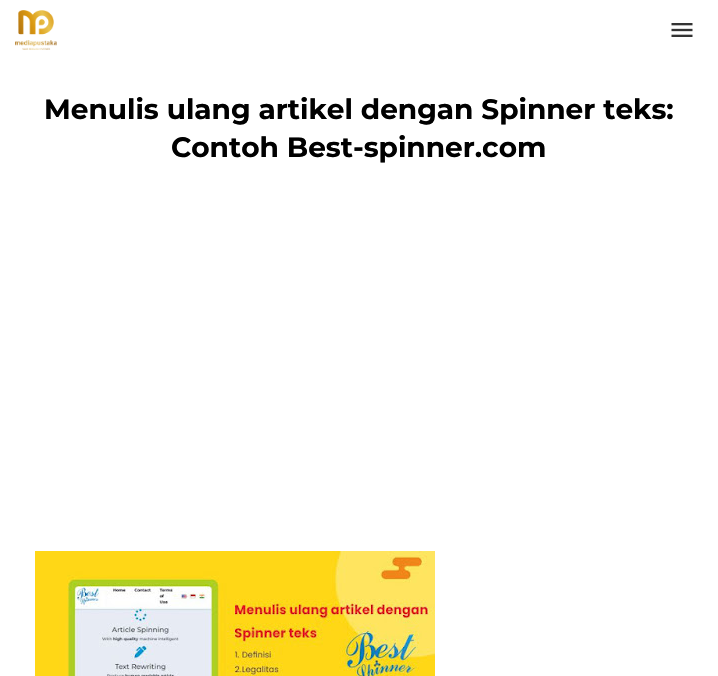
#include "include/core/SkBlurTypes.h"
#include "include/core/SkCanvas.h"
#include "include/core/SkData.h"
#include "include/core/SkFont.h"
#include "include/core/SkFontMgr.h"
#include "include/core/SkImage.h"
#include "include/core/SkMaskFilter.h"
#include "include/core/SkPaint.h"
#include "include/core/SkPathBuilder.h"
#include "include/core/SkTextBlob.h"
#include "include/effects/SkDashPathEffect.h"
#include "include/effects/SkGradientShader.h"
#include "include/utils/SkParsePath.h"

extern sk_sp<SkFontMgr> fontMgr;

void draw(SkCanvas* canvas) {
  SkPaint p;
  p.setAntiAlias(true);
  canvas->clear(SK_ColorWHITE);
  canvas->drawImageRect(SkImages::DeferredFromEncodedData(SkData::MakeFromFileName("images/1.png")), SkRect::MakeLTRB(15, 10, 57, 50), SkSamplingOptions());
  canvas->drawImageRect(SkImages::DeferredFromEncodedData(SkData::MakeFromFileName("images/2.png")), SkRect::MakeLTRB(671, 23, 693, 37), SkSamplingOptions());
  canvas->drawImageRect(SkImages::DeferredFromEncodedData(SkData::MakeFromFileName("images/3.png")), SkRect::MakeLTRB(35, 551, 435, 676), SkSamplingOptions());
  SkFont font1(fontMgr->matchFamilyStyle("Montserrat", SkFontStyle::Bold()), 28);
  font1.setSubpixel(true);
  p.setColor(SK_ColorBLACK);
  canvas->drawString("Menulis ulang artikel dengan Spinner teks:", 44, 119, font1, p);
  canvas->drawString("Contoh Best-spinner.com", 171, 157, font1, p);
}
